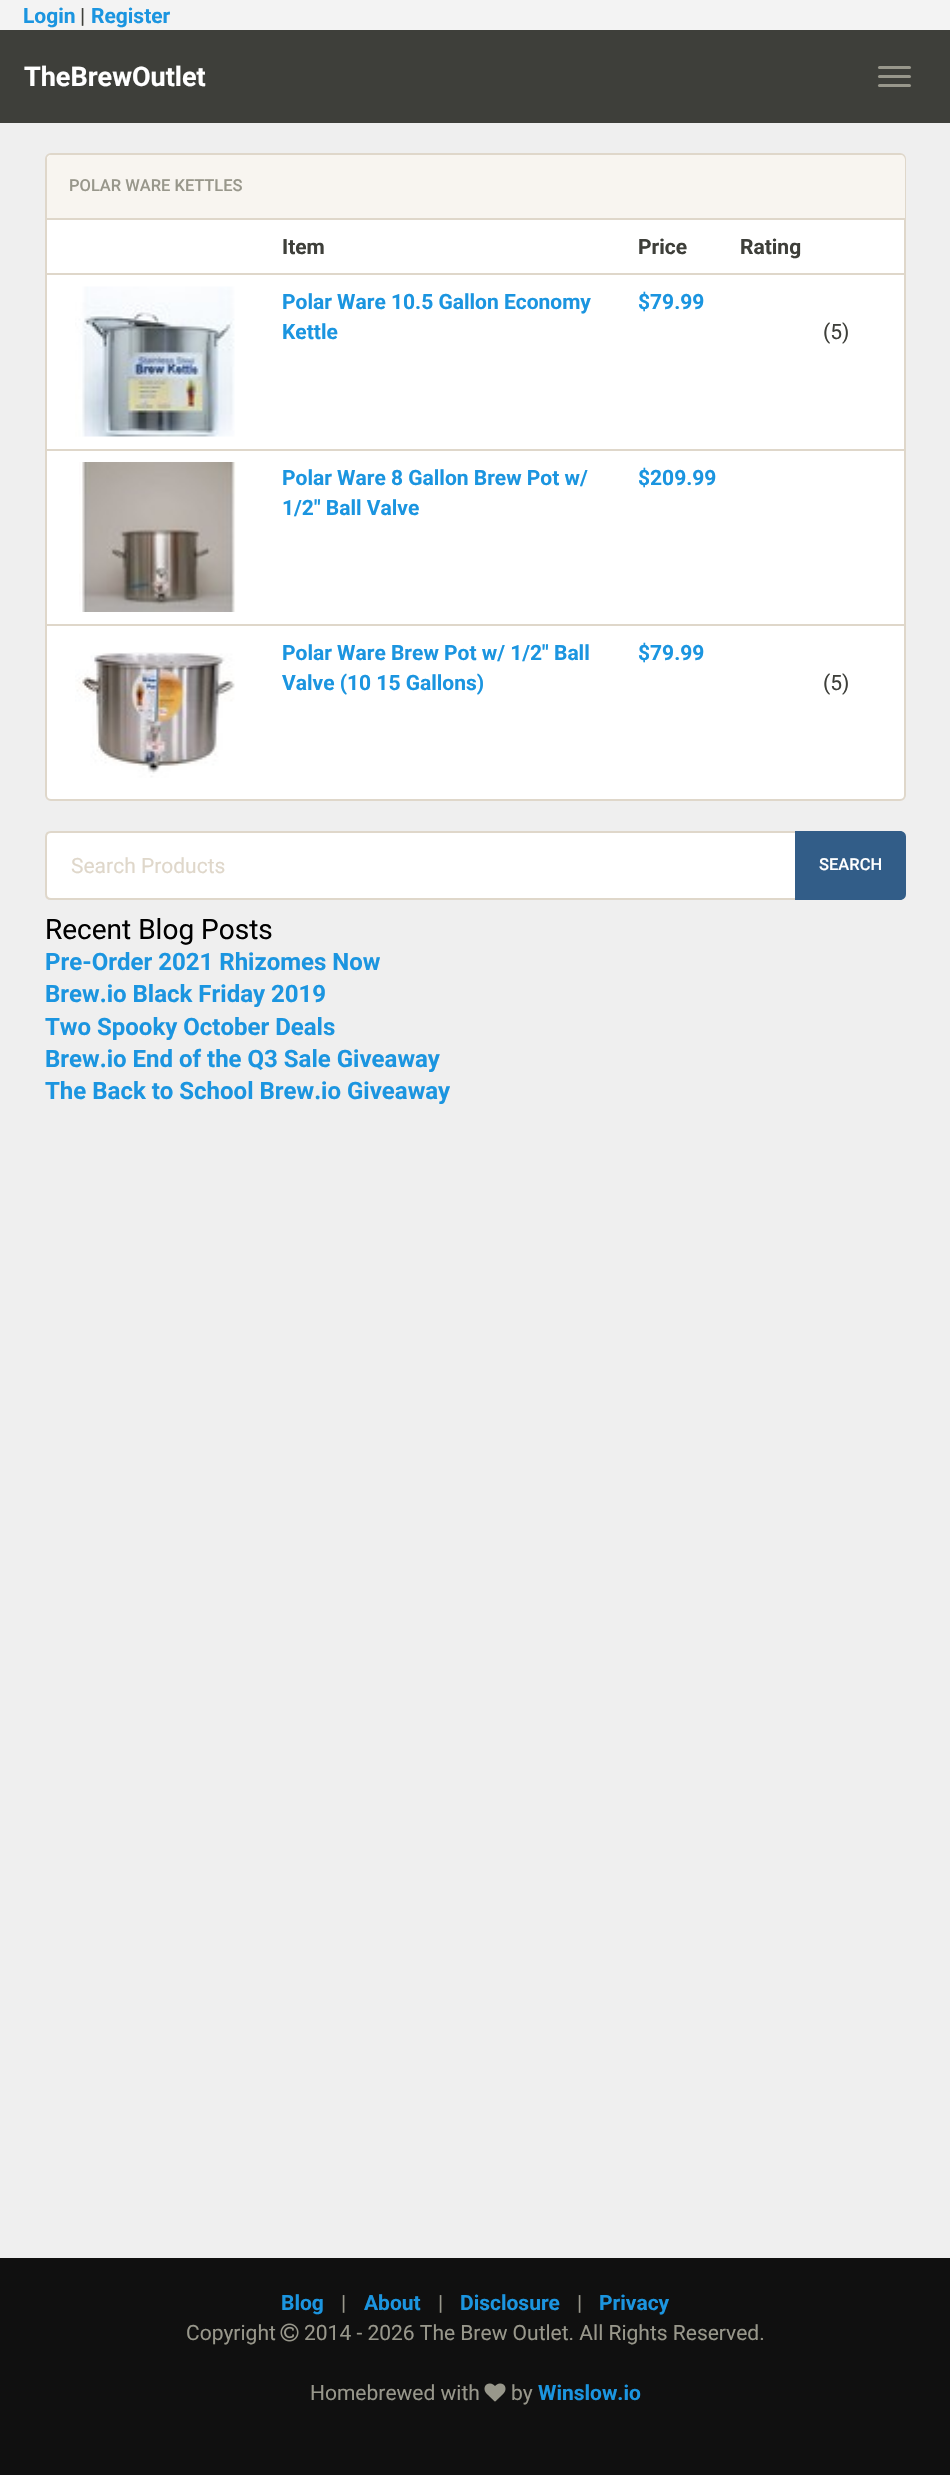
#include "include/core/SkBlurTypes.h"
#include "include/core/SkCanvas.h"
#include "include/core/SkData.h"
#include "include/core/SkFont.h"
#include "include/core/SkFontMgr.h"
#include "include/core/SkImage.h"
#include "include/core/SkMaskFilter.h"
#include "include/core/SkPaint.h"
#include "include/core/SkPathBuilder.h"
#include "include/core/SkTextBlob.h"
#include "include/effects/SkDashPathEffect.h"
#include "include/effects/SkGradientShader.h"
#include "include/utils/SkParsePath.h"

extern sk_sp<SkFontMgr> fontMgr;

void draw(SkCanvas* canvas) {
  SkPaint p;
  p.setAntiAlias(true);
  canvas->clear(SkColorSetRGB(239, 239, 239));
  p.setColor(SkColorSetRGB(243, 243, 243));
  canvas->drawRect(SkRect::MakeLTRB(0, 0, 950, 30), p);
  p.setColor(SkColorSetRGB(62, 63, 58));
  canvas->drawRect(SkRect::MakeLTRB(0, 30, 950, 123), p);
  p.setColor(SkColorSetRGB(152, 151, 139));
  canvas->drawRoundRect(SkRect::MakeLTRB(878, 66, 911, 69), 1.5f, 1.5f, p);
  canvas->drawRoundRect(SkRect::MakeLTRB(878, 75, 911, 78), 1.5f, 1.5f, p);
  canvas->drawRoundRect(SkRect::MakeLTRB(878, 84, 911, 87), 1.5f, 1.5f, p);
  p.setColor(SK_ColorWHITE);
  canvas->drawRoundRect(SkRect::MakeLTRB(46, 154, 905, 800), 5, 5, p);
  p.setStyle(SkPaint::kStroke_Style);
  p.setStrokeWidth(2);
  p.setColor(SkColorSetRGB(223, 215, 202));
  canvas->drawRoundRect(SkRect::MakeLTRB(46, 154, 905, 800), 5, 5, p);
  p.setStyle(SkPaint::kFill_Style);
  p.setColor(SkColorSetRGB(248, 245, 240));
  canvas->drawPath(SkPathBuilder().moveTo(52, 155).lineTo(900, 155).cubicTo(903, 155, 905, 157, 905, 160).lineTo(905, 219).lineTo(47, 219).lineTo(47, 160).cubicTo(47, 157, 49, 155, 52, 155).close().detach(), p);
  p.setColor(SkColorSetRGB(223, 215, 202));
  canvas->drawRect(SkRect::MakeLTRB(47, 218, 905, 220), p);
  canvas->drawImageRect(SkImages::DeferredFromEncodedData(SkData::MakeFromFileName("images/1.png")), SkRect::MakeLTRB(75, 286, 235, 437), SkSamplingOptions());
  canvas->drawRect(SkRect::MakeLTRB(47, 273, 906, 275), p);
  canvas->drawRect(SkRect::MakeLTRB(47, 449, 906, 451), p);
  canvas->drawImageRect(SkImages::DeferredFromEncodedData(SkData::MakeFromFileName("images/2.png")), SkRect::MakeLTRB(79, 462, 236, 612), SkSamplingOptions());
  canvas->drawImageRect(SkImages::DeferredFromEncodedData(SkData::MakeFromFileName("images/3.png")), SkRect::MakeLTRB(75, 652, 235, 778), SkSamplingOptions());
  canvas->drawRect(SkRect::MakeLTRB(47, 624, 906, 626), p);
  p.setColor(SK_ColorWHITE);
  canvas->drawPath(SkPathBuilder().moveTo(51, 832).lineTo(796, 832).lineTo(796, 899).lineTo(51, 899).cubicTo(48, 899, 46, 897, 46, 894).lineTo(46, 837).cubicTo(46, 834, 48, 832, 51, 832).close().detach(), p);
  p.setStyle(SkPaint::kStroke_Style);
  p.setColor(SkColorSetRGB(223, 215, 202));
  canvas->drawPath(SkPathBuilder().moveTo(51, 832).lineTo(796, 832).lineTo(796, 899).lineTo(51, 899).cubicTo(48, 899, 46, 897, 46, 894).lineTo(46, 837).cubicTo(46, 834, 48, 832, 51, 832).close().detach(), p);
  p.setStyle(SkPaint::kFill_Style);
  p.setColor(SkColorSetRGB(50, 93, 136));
  canvas->drawPath(SkPathBuilder().moveTo(795, 831).lineTo(900, 831).cubicTo(903.5f, 831, 906, 833.5f, 906, 837).lineTo(906, 894).cubicTo(906, 897.5f, 903.5f, 900, 900, 900).lineTo(795, 900).close().detach(), p);
  p.setColor(SkColorSetRGB(16, 16, 16));
  canvas->drawRect(SkRect::MakeLTRB(0, 2258, 950, 2475), p);
  canvas->drawImageRect(SkImages::DeferredFromEncodedData(SkData::MakeFromFileName("images/4.png")), SkRect::MakeLTRB(280, 2323, 299, 2342), SkSamplingOptions());
  canvas->drawImageRect(SkImages::DeferredFromEncodedData(SkData::MakeFromFileName("images/5.png")), SkRect::MakeLTRB(484, 2383, 506, 2402), SkSamplingOptions());
  SkFont font1(fontMgr->matchFamilyStyle("Roboto", SkFontStyle::Bold()), 21);
  font1.setSubpixel(true);
  p.setColor(SkColorSetRGB(27, 149, 224));
  canvas->drawString("Login", 23, 23, font1, p);
  SkFont font2(fontMgr->matchFamilyStyle("Roboto", SkFontStyle::Normal()), 21);
  font2.setSubpixel(true);
  p.setColor(SkColorSetRGB(62, 63, 58));
  canvas->drawString("|", 80, 23, font2, p);
  p.setColor(SkColorSetRGB(27, 149, 224));
  canvas->drawString("Register", 91, 23, font1, p);
  SkFont font3(fontMgr->matchFamilyStyle("Roboto", SkFontStyle::Bold()), 27);
  font3.setSubpixel(true);
  p.setColor(SK_ColorWHITE);
  canvas->drawString("TheBrewOutlet", 24, 86, font3, p);
  SkFont font4(fontMgr->matchFamilyStyle("Roboto", SkFontStyle(500, SkFontStyle::kNormal_Width, SkFontStyle::kUpright_Slant)), 16.5f);
  font4.setSubpixel(true);
  p.setColor(SkColorSetRGB(152, 151, 139));
  canvas->drawString("POLAR WARE KETTLES", 69, 191, font4, p);
  p.setColor(SkColorSetRGB(62, 63, 58));
  canvas->drawString("Item", 282, 254, font1, p);
  canvas->drawString("Price", 638, 254, font1, p);
  canvas->drawString("Rating", 740, 254, font1, p);
  p.setColor(SkColorSetRGB(27, 149, 224));
  canvas->drawString("Polar Ware 10.5 Gallon Economy", 282, 309, font1, p);
  canvas->drawString("Kettle", 282, 339, font1, p);
  canvas->drawString("$79.99", 638, 309, font1, p);
  p.setColor(SkColorSetRGB(62, 63, 58));
  canvas->drawString("(5)", 823, 339, font2, p);
  p.setColor(SkColorSetRGB(27, 149, 224));
  canvas->drawString("Polar Ware 8 Gallon Brew Pot w/", 282, 485, font1, p);
  canvas->drawString("1/2\" Ball Valve", 282, 515, font1, p);
  canvas->drawString("$209.99", 638, 485, font1, p);
  canvas->drawString("Polar Ware Brew Pot w/ 1/2\" Ball", 282, 660, font1, p);
  canvas->drawString("Valve (10 15 Gallons)", 282, 690, font1, p);
  canvas->drawString("$79.99", 638, 660, font1, p);
  p.setColor(SkColorSetRGB(62, 63, 58));
  canvas->drawString("(5)", 823, 690, font2, p);
  p.setColor(SkColorSetRGB(223, 215, 202));
  canvas->drawString("Search Products", 71, 873, font2, p);
  p.setColor(SK_ColorWHITE);
  canvas->drawString("SEARCH", 819, 870, font4, p);
  SkFont font5(fontMgr->matchFamilyStyle("Roboto", SkFontStyle::Normal()), 28);
  font5.setSubpixel(true);
  p.setColor(SK_ColorBLACK);
  canvas->drawString("Recent Blog Posts", 45, 939, font5, p);
  SkFont font6(fontMgr->matchFamilyStyle("Roboto", SkFontStyle::Bold()), 24);
  font6.setSubpixel(true);
  p.setColor(SkColorSetRGB(27, 149, 224));
  canvas->drawString("Pre-Order 2021 Rhizomes Now", 45, 970, font6, p);
  canvas->drawString("Brew.io Black Friday 2019", 45, 1002, font6, p);
  canvas->drawString("Two Spooky October Deals", 45, 1035, font6, p);
  canvas->drawString("Brew.io End of the Q3 Sale Giveaway", 45, 1067, font6, p);
  canvas->drawString("The Back to School Brew.io Giveaway", 45, 1099, font6, p);
  canvas->drawString("Blog", 281, 2310, font1, p);
  p.setColor(SkColorSetRGB(152, 151, 139));
  canvas->drawString("|", 341, 2310, font2, p);
  p.setColor(SkColorSetRGB(27, 149, 224));
  canvas->drawString("About", 364, 2310, font1, p);
  p.setColor(SkColorSetRGB(152, 151, 139));
  canvas->drawString("|", 438, 2310, font2, p);
  p.setColor(SkColorSetRGB(27, 149, 224));
  canvas->drawString("Disclosure", 460, 2310, font1, p);
  p.setColor(SkColorSetRGB(152, 151, 139));
  canvas->drawString("|", 577, 2310, font2, p);
  p.setColor(SkColorSetRGB(27, 149, 224));
  canvas->drawString("Privacy", 599, 2310, font1, p);
  p.setColor(SkColorSetRGB(152, 151, 139));
  canvas->drawString("Copyright", 186, 2340, font2, p);
  canvas->drawString("2014 - 2026 The Brew Outlet. All Rights Reserved.", 304, 2340, font2, p);
  canvas->drawString("Homebrewed with", 310, 2400, font2, p);
  canvas->drawString("by", 511, 2400, font2, p);
  p.setColor(SkColorSetRGB(27, 149, 224));
  canvas->drawString("Winslow.io", 538, 2400, font1, p);
}
